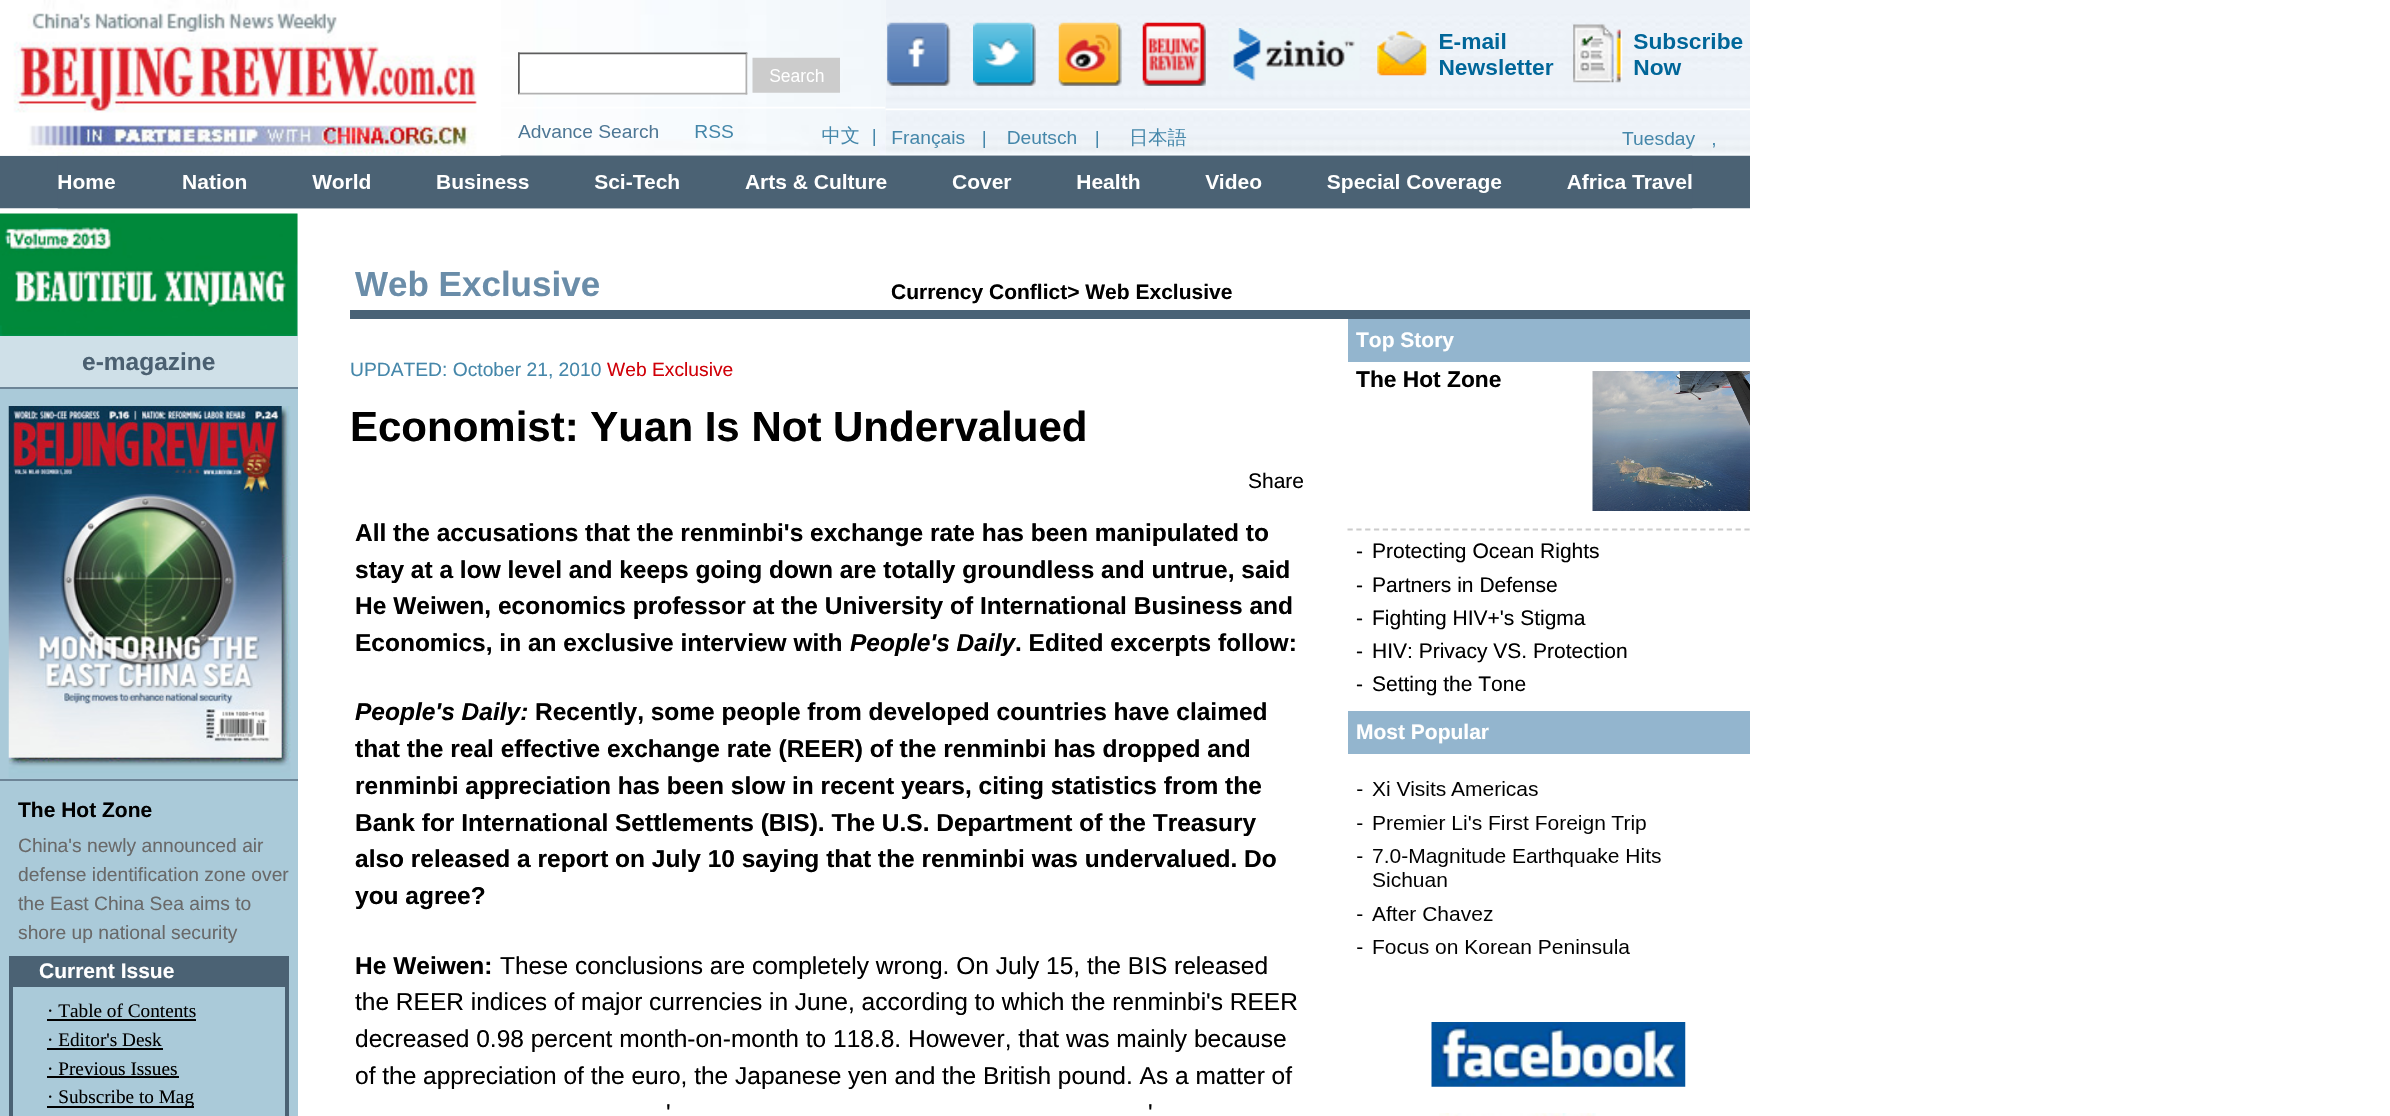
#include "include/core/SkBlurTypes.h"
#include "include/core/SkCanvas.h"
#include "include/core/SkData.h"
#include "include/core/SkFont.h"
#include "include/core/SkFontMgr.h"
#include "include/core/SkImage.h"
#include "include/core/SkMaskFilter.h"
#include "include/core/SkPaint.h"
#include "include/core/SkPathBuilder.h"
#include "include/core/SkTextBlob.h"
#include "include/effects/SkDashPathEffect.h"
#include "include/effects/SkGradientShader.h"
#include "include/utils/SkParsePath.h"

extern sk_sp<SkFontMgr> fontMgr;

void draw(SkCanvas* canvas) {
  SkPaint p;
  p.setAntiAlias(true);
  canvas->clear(SK_ColorWHITE);
  canvas->drawImageRect(SkImages::DeferredFromEncodedData(SkData::MakeFromFileName("images/1.png")), SkRect::MakeLTRB(0, 0, 1750, 209), SkSamplingOptions());
  p.setColor(SkColorSetRGB(240, 240, 240));
  canvas->drawRect(SkRect::MakeLTRB(297, 214, 298, 336), p);
  canvas->drawImageRect(SkImages::DeferredFromEncodedData(SkData::MakeFromFileName("images/2.png")), SkRect::MakeLTRB(0, 213, 298, 336), SkSamplingOptions());
  p.setColor(SkColorSetRGB(207, 224, 232));
  canvas->drawRect(SkRect::MakeLTRB(0, 336, 298, 387), p);
  p.setColor(SkColorSetRGB(109, 133, 151));
  canvas->drawRect(SkRect::MakeLTRB(0, 387, 298, 389), p);
  p.setColor(SkColorSetRGB(170, 202, 217));
  canvas->drawRect(SkRect::MakeLTRB(0, 389, 298, 779), p);
  p.setColor(SkColorSetRGB(109, 133, 151));
  canvas->drawRect(SkRect::MakeLTRB(0, 779, 298, 781), p);
  canvas->drawImageRect(SkImages::DeferredFromEncodedData(SkData::MakeFromFileName("images/3.png")), SkRect::MakeLTRB(8, 406, 291, 778), SkSamplingOptions());
  p.setColor(SkColorSetRGB(170, 202, 217));
  canvas->drawRect(SkRect::MakeLTRB(0, 781, 298, 1116), p);
  p.setStyle(SkPaint::kStroke_Style);
  p.setStrokeWidth(2);
  p.setColor(SkColorSetRGB(75, 98, 116));
  canvas->drawRect(SkRect::MakeLTRB(10, 957, 288, 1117), p);
  p.setStyle(SkPaint::kFill_Style);
  canvas->drawRect(SkRect::MakeLTRB(11, 958, 287, 985), p);
  p.setStyle(SkPaint::kStroke_Style);
  canvas->drawRect(SkRect::MakeLTRB(12, 986, 286, 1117), p);
  p.setStyle(SkPaint::kFill_Style);
  p.setColor(SK_ColorBLACK);
  canvas->drawRect(SkRect::MakeLTRB(47, 1019, 196, 1021), p);
  canvas->drawRect(SkRect::MakeLTRB(47, 1048, 163, 1050), p);
  canvas->drawRect(SkRect::MakeLTRB(47, 1076, 179, 1078), p);
  canvas->drawRect(SkRect::MakeLTRB(47, 1106, 194, 1108), p);
  p.setColor(SkColorSetRGB(73, 98, 118));
  canvas->drawRect(SkRect::MakeLTRB(350, 310, 1750, 319), p);
  p.setColor(SkColorSetRGB(147, 181, 206));
  canvas->drawRect(SkRect::MakeLTRB(1348, 319, 1750, 362), p);
  p.setStyle(SkPaint::kStroke_Style);
  p.setStrokeWidth(1.8f);
  p.setColor(SkColorSetRGB(204, 204, 204));
  p.setPathEffect(SkDashPathEffect::Make({{5.25f, 3.57f}}, 0));
  canvas->drawPath(SkPathBuilder().moveTo(1347.5f, 529.5f).lineTo(1750, 529.5f).detach(), p);
  p.setPathEffect(nullptr);
  canvas->drawImageRect(SkImages::DeferredFromEncodedData(SkData::MakeFromFileName("images/4.png")), SkRect::MakeLTRB(1592, 371, 1750, 511), SkSamplingOptions());
  p.setStyle(SkPaint::kFill_Style);
  p.setColor(SkColorSetRGB(147, 181, 206));
  canvas->drawRect(SkRect::MakeLTRB(1348, 711, 1750, 754), p);
  canvas->drawImageRect(SkImages::DeferredFromEncodedData(SkData::MakeFromFileName("images/5.png")), SkRect::MakeLTRB(1357, 781, 1661, 954), SkSamplingOptions());
  canvas->drawImageRect(SkImages::DeferredFromEncodedData(SkData::MakeFromFileName("images/6.png")), SkRect::MakeLTRB(1431, 1022, 1686, 1087), SkSamplingOptions());
  canvas->drawImageRect(SkImages::DeferredFromEncodedData(SkData::MakeFromFileName("images/7.png")), SkRect::MakeLTRB(1439, 1113, 1596, 1116), SkSamplingOptions());
  SkFont font1(fontMgr->matchFamilyStyle("Liberation Sans", SkFontStyle::Bold()), 24.5f);
  font1.setSubpixel(true);
  p.setColor(SkColorSetRGB(75, 96, 113));
  canvas->drawString("e-magazine", 82, 370, font1, p);
  SkFont font2(fontMgr->matchFamilyStyle("Liberation Sans", SkFontStyle::Bold()), 21);
  font2.setSubpixel(true);
  p.setColor(SK_ColorBLACK);
  canvas->drawString("The Hot Zone", 18, 817, font2, p);
  SkFont font3(fontMgr->matchFamilyStyle("Liberation Sans", SkFontStyle::Normal()), 19.25f);
  font3.setSubpixel(true);
  p.setColor(SkColorSetRGB(105, 105, 105));
  canvas->drawString("China's newly announced air", 18, 852, font3, p);
  canvas->drawString("defense identification zone over", 18, 881, font3, p);
  canvas->drawString("the East China Sea aims to", 18, 910, font3, p);
  canvas->drawString("shore up national security", 18, 939, font3, p);
  p.setColor(SK_ColorWHITE);
  canvas->drawString("Current Issue", 39, 978, font2, p);
  SkFont font4(fontMgr->matchFamilyStyle("Liberation Serif", SkFontStyle::Normal()), 19.25f);
  font4.setSubpixel(true);
  p.setColor(SK_ColorBLACK);
  canvas->drawString("· Table of Contents", 47, 1017, font4, p);
  canvas->drawString("· Editor's Desk", 47, 1046, font4, p);
  canvas->drawString("· Previous Issues", 47, 1075, font4, p);
  canvas->drawString("· Subscribe to Mag", 47, 1103, font4, p);
  SkFont font5(fontMgr->matchFamilyStyle("Liberation Sans", SkFontStyle::Bold()), 35);
  font5.setSubpixel(true);
  p.setColor(SkColorSetRGB(106, 141, 169));
  canvas->drawString("Web Exclusive", 355, 296, font5, p);
  p.setColor(SK_ColorBLACK);
  canvas->drawString("Currency Conflict> Web Exclusive", 891, 299, font2, p);
  p.setColor(SkColorSetRGB(69, 135, 170));
  canvas->drawString("UPDATED: October 21, 2010", 350, 376, font3, p);
  p.setColor(SkColorSetRGB(208, 1, 9));
  canvas->drawString("Web Exclusive", 607, 376, font3, p);
  SkFont font6(fontMgr->matchFamilyStyle("Liberation Sans", SkFontStyle::Bold()), 42);
  font6.setSubpixel(true);
  p.setColor(SK_ColorBLACK);
  canvas->drawString("Economist: Yuan Is Not Undervalued", 350, 441, font6, p);
  SkFont font7(fontMgr->matchFamilyStyle("Liberation Sans", SkFontStyle::Normal()), 21);
  font7.setSubpixel(true);
  canvas->drawString("Share", 1248, 488, font7, p);
  canvas->drawString("All the accusations that the renminbi's exchange rate has been manipulated to", 355, 541, font1, p);
  canvas->drawString("stay at a low level and keeps going down are totally groundless and untrue, said", 355, 578, font1, p);
  canvas->drawString("He Weiwen, economics professor at the University of International Business and", 355, 614, font1, p);
  canvas->drawString("Economics, in an exclusive interview with", 355, 651, font1, p);
  SkFont font8(fontMgr->matchFamilyStyle("Liberation Sans", SkFontStyle::BoldItalic()), 24.5f);
  font8.setSubpixel(true);
  canvas->drawString("People's Daily", 850, 651, font8, p);
  canvas->drawString(". Edited excerpts follow:", 1015, 651, font1, p);
  canvas->drawString("People's Daily:", 355, 720, font8, p);
  canvas->drawString("Recently, some people from developed countries have claimed", 535, 720, font1, p);
  canvas->drawString("that the real effective exchange rate (REER) of the renminbi has dropped and", 355, 757, font1, p);
  canvas->drawString("renminbi appreciation has been slow in recent years, citing statistics from the", 355, 794, font1, p);
  canvas->drawString("Bank for International Settlements (BIS). The U.S. Department of the Treasury", 355, 831, font1, p);
  canvas->drawString("also released a report on July 10 saying that the renminbi was undervalued. Do", 355, 867, font1, p);
  canvas->drawString("you agree?", 355, 904, font1, p);
  canvas->drawString("He Weiwen:", 355, 974, font1, p);
  SkFont font9(fontMgr->matchFamilyStyle("Liberation Sans", SkFontStyle::Normal()), 24.5f);
  font9.setSubpixel(true);
  canvas->drawString("These conclusions are completely wrong. On July 15, the BIS released", 500, 974, font9, p);
  canvas->drawString("the REER indices of major currencies in June, according to which the renminbi's REER", 355, 1010, font9, p);
  canvas->drawString("decreased 0.98 percent month-on-month to 118.8. However, that was mainly because", 355, 1047, font9, p);
  canvas->drawString("of the appreciation of the euro, the Japanese yen and the British pound. As a matter of", 355, 1084, font9, p);
  canvas->drawString("'", 666, 1121, font9, p);
  canvas->drawString("'", 1148, 1121, font9, p);
  p.setColor(SK_ColorWHITE);
  canvas->drawString("Top Story", 1356, 347, font2, p);
  SkFont font10(fontMgr->matchFamilyStyle("Liberation Sans", SkFontStyle::Bold()), 22.75f);
  font10.setSubpixel(true);
  p.setColor(SK_ColorBLACK);
  canvas->drawString("The Hot Zone", 1356, 387, font10, p);
  canvas->drawString("-", 1356, 558, font7, p);
  canvas->drawString("Protecting Ocean Rights", 1372, 558, font7, p);
  canvas->drawString("-", 1356, 592, font7, p);
  canvas->drawString("Partners in Defense", 1372, 592, font7, p);
  canvas->drawString("-", 1356, 625, font7, p);
  canvas->drawString("Fighting HIV+'s Stigma", 1372, 625, font7, p);
  canvas->drawString("-", 1356, 658, font7, p);
  canvas->drawString("HIV: Privacy VS. Protection", 1372, 658, font7, p);
  canvas->drawString("-", 1356, 691, font7, p);
  canvas->drawString("Setting the Tone", 1372, 691, font7, p);
  p.setColor(SK_ColorWHITE);
  canvas->drawString("Most Popular", 1356, 739, font2, p);
}
